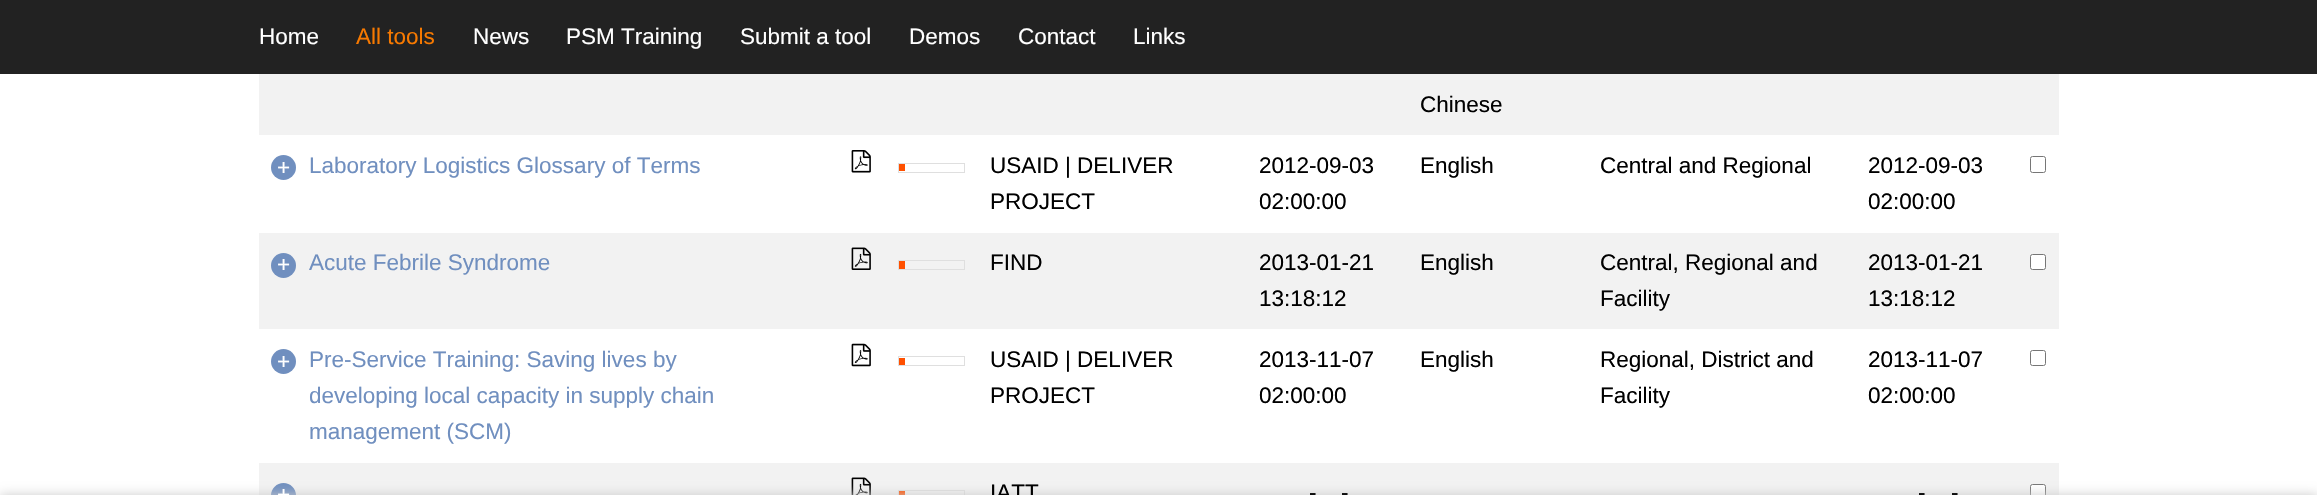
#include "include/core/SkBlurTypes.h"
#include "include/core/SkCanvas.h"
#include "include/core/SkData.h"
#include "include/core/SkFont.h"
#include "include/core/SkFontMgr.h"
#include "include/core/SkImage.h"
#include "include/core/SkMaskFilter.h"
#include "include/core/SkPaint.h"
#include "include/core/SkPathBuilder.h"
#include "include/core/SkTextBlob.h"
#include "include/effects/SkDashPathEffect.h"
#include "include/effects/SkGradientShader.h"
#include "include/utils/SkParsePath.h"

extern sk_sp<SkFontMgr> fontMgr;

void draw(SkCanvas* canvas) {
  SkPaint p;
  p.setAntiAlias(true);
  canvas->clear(SK_ColorWHITE);
  p.setColor(SkColorSetRGB(34, 34, 34));
  canvas->drawRect(SkRect::MakeLTRB(0, 0, 2317, 74), p);
  p.setColor(SkColorSetRGB(242, 242, 242));
  canvas->drawRect(SkRect::MakeLTRB(259, 74, 2059, 135), p);
  p.setColor(SkColorSetRGB(112, 143, 191));
  canvas->drawCircle(283.5f, 167.5f, 12.5f, p);
  canvas->drawImageRect(SkImages::DeferredFromEncodedData(SkData::MakeFromFileName("images/1.png")), SkRect::MakeLTRB(851, 150, 871, 173), SkSamplingOptions());
  p.setStyle(SkPaint::kStroke_Style);
  p.setStrokeWidth(1);
  p.setColor(SkColorSetRGB(223, 223, 223));
  canvas->drawRect(SkRect::MakeLTRB(898.5f, 163.5f, 964.5f, 172.5f), p);
  p.setStyle(SkPaint::kFill_Style);
  p.setColor(SkColorSetRGB(255, 80, 0));
  canvas->drawRect(SkRect::MakeLTRB(899, 164, 905, 171), p);
  p.setStyle(SkPaint::kStroke_Style);
  p.setColor(SkColorSetRGB(118, 118, 118));
  canvas->drawRoundRect(SkRect::MakeLTRB(2030.5f, 156.5f, 2045.5f, 172.5f), 2, 2, p);
  p.setStyle(SkPaint::kFill_Style);
  p.setColor(SkColorSetRGB(242, 242, 242));
  canvas->drawRect(SkRect::MakeLTRB(259, 233, 2059, 329), p);
  p.setColor(SkColorSetRGB(112, 143, 191));
  canvas->drawCircle(283.5f, 265.5f, 12.5f, p);
  canvas->drawImageRect(SkImages::DeferredFromEncodedData(SkData::MakeFromFileName("images/2.png")), SkRect::MakeLTRB(851, 247, 871, 270), SkSamplingOptions());
  p.setStyle(SkPaint::kStroke_Style);
  p.setColor(SkColorSetRGB(223, 223, 223));
  canvas->drawRect(SkRect::MakeLTRB(898.5f, 260.5f, 964.5f, 269.5f), p);
  p.setStyle(SkPaint::kFill_Style);
  p.setColor(SkColorSetRGB(255, 80, 0));
  canvas->drawRect(SkRect::MakeLTRB(899, 261, 905, 269), p);
  p.setColor(SK_ColorWHITE);
  canvas->drawRoundRect(SkRect::MakeLTRB(2030.5f, 254.5f, 2045.5f, 269.5f), 2, 2, p);
  p.setStyle(SkPaint::kStroke_Style);
  p.setColor(SkColorSetRGB(118, 118, 118));
  canvas->drawRoundRect(SkRect::MakeLTRB(2030.5f, 254.5f, 2045.5f, 269.5f), 2, 2, p);
  p.setStyle(SkPaint::kFill_Style);
  p.setColor(SkColorSetRGB(112, 143, 191));
  canvas->drawCircle(283.5f, 361.5f, 12.5f, p);
  canvas->drawImageRect(SkImages::DeferredFromEncodedData(SkData::MakeFromFileName("images/3.png")), SkRect::MakeLTRB(851, 343, 871, 367), SkSamplingOptions());
  p.setStyle(SkPaint::kStroke_Style);
  p.setColor(SkColorSetRGB(223, 223, 223));
  canvas->drawRect(SkRect::MakeLTRB(898.5f, 356.5f, 964.5f, 365.5f), p);
  p.setStyle(SkPaint::kFill_Style);
  p.setColor(SkColorSetRGB(255, 80, 0));
  canvas->drawRect(SkRect::MakeLTRB(899, 358, 905, 365), p);
  p.setStyle(SkPaint::kStroke_Style);
  p.setColor(SkColorSetRGB(118, 118, 118));
  canvas->drawRoundRect(SkRect::MakeLTRB(2030.5f, 350.5f, 2045.5f, 365.5f), 2, 2, p);
  p.setStyle(SkPaint::kFill_Style);
  p.setColor(SkColorSetRGB(242, 242, 242));
  canvas->drawRect(SkRect::MakeLTRB(259, 463, 2059, 495), p);
  p.setColor(SkColorSetRGB(112, 143, 191));
  canvas->drawCircle(283.5f, 495.5f, 12.5f, p);
  canvas->drawImageRect(SkImages::DeferredFromEncodedData(SkData::MakeFromFileName("images/4.png")), SkRect::MakeLTRB(851, 477, 871, 495), SkSamplingOptions());
  p.setStyle(SkPaint::kStroke_Style);
  p.setColor(SkColorSetRGB(223, 223, 223));
  canvas->drawRect(SkRect::MakeLTRB(898.5f, 490.5f, 964.5f, 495.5f), p);
  p.setStyle(SkPaint::kFill_Style);
  p.setColor(SkColorSetRGB(255, 80, 0));
  canvas->drawRect(SkRect::MakeLTRB(899, 491, 905, 495), p);
  p.setColor(SK_ColorWHITE);
  canvas->drawRoundRect(SkRect::MakeLTRB(2030.5f, 484.5f, 2045.5f, 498.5f), 2, 2, p);
  p.setStyle(SkPaint::kStroke_Style);
  p.setColor(SkColorSetRGB(118, 118, 118));
  canvas->drawRoundRect(SkRect::MakeLTRB(2030.5f, 484.5f, 2045.5f, 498.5f), 2, 2, p);
  p.setStyle(SkPaint::kFill_Style);
  p.setColor(SkColorSetRGB(204, 204, 204));
  p.setMaskFilter(SkMaskFilter::MakeBlur(kNormal_SkBlurStyle, 6));
  canvas->drawRect(SkRect::MakeLTRB(0, 495, 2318, 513), p);
  p.setMaskFilter(nullptr);
  SkFont font1(fontMgr->matchFamilyStyle("Liberation Sans", SkFontStyle::Normal()), 22.5f);
  font1.setSubpixel(true);
  p.setColor(SK_ColorWHITE);
  canvas->drawString("Home", 259, 44, font1, p);
  p.setColor(SkColorSetRGB(247, 121, 0));
  canvas->drawString("All tools", 356, 44, font1, p);
  p.setColor(SK_ColorWHITE);
  canvas->drawString("News", 473, 44, font1, p);
  canvas->drawString("PSM Training", 566, 44, font1, p);
  canvas->drawString("Submit a tool", 740, 44, font1, p);
  canvas->drawString("Demos", 909, 44, font1, p);
  canvas->drawString("Contact", 1018, 44, font1, p);
  canvas->drawString("Links", 1133, 44, font1, p);
  p.setColor(SK_ColorBLACK);
  canvas->drawString("Chinese", 1420, 112, font1, p);
  p.setColor(SK_ColorWHITE);
  canvas->drawString("+", 277, 175, font1, p);
  p.setColor(SkColorSetRGB(112, 143, 191));
  canvas->drawString("Laboratory Logistics Glossary of Terms", 309, 173, font1, p);
  p.setColor(SK_ColorBLACK);
  canvas->drawString("USAID | DELIVER", 990, 173, font1, p);
  canvas->drawString("PROJECT", 990, 209, font1, p);
  canvas->drawString("2012-09-03", 1259, 173, font1, p);
  canvas->drawString("02:00:00", 1259, 209, font1, p);
  canvas->drawString("English", 1420, 173, font1, p);
  canvas->drawString("Central and Regional", 1600, 173, font1, p);
  canvas->drawString("2012-09-03", 1868, 173, font1, p);
  canvas->drawString("02:00:00", 1868, 209, font1, p);
  p.setColor(SK_ColorWHITE);
  canvas->drawString("+", 277, 272, font1, p);
  p.setColor(SkColorSetRGB(112, 143, 191));
  canvas->drawString("Acute Febrile Syndrome", 309, 270, font1, p);
  p.setColor(SK_ColorBLACK);
  canvas->drawString("FIND", 990, 270, font1, p);
  canvas->drawString("2013-01-21", 1259, 270, font1, p);
  canvas->drawString("13:18:12", 1259, 306, font1, p);
  canvas->drawString("English", 1420, 270, font1, p);
  canvas->drawString("Central, Regional and", 1600, 270, font1, p);
  canvas->drawString("Facility", 1600, 306, font1, p);
  canvas->drawString("2013-01-21", 1868, 270, font1, p);
  canvas->drawString("13:18:12", 1868, 306, font1, p);
  p.setColor(SK_ColorWHITE);
  canvas->drawString("+", 277, 369, font1, p);
  p.setColor(SkColorSetRGB(112, 143, 191));
  canvas->drawString("Pre-Service Training: Saving lives by", 309, 367, font1, p);
  canvas->drawString("developing local capacity in supply chain", 309, 403, font1, p);
  canvas->drawString("management (SCM)", 309, 439, font1, p);
  p.setColor(SK_ColorBLACK);
  canvas->drawString("USAID | DELIVER", 990, 367, font1, p);
  canvas->drawString("PROJECT", 990, 403, font1, p);
  canvas->drawString("2013-11-07", 1259, 367, font1, p);
  canvas->drawString("02:00:00", 1259, 403, font1, p);
  canvas->drawString("English", 1420, 367, font1, p);
  canvas->drawString("Regional, District and", 1600, 367, font1, p);
  canvas->drawString("Facility", 1600, 403, font1, p);
  canvas->drawString("2013-11-07", 1868, 367, font1, p);
  canvas->drawString("02:00:00", 1868, 403, font1, p);
  p.setColor(SK_ColorWHITE);
  canvas->drawString("+", 277, 502, font1, p);
  p.setColor(SK_ColorBLACK);
  canvas->drawString("IATT", 990, 500, font1, p);
  canvas->drawString("-", 1309, 500, font1, p);
  canvas->drawString("-", 1341, 500, font1, p);
  canvas->drawString("-", 1918, 500, font1, p);
  canvas->drawString("-", 1951, 500, font1, p);
}
